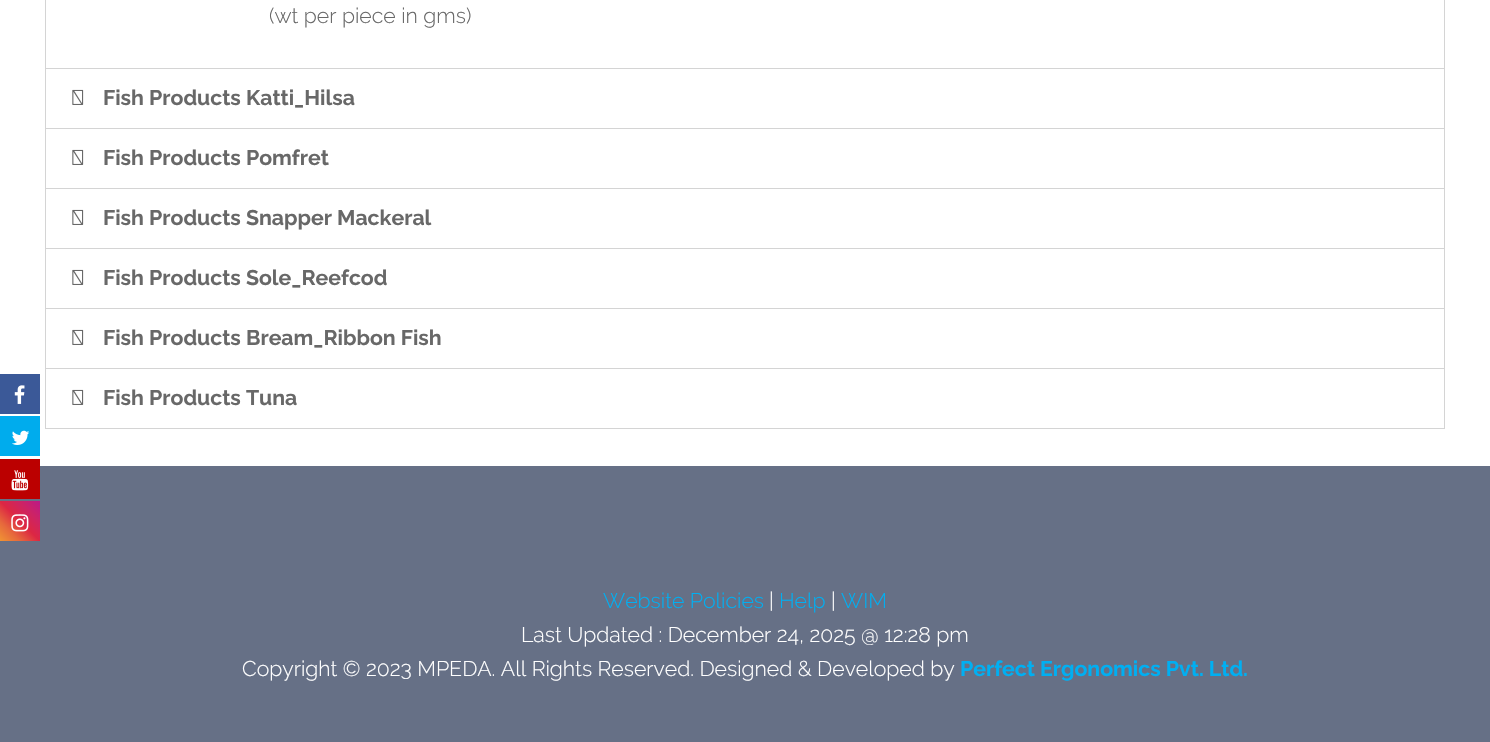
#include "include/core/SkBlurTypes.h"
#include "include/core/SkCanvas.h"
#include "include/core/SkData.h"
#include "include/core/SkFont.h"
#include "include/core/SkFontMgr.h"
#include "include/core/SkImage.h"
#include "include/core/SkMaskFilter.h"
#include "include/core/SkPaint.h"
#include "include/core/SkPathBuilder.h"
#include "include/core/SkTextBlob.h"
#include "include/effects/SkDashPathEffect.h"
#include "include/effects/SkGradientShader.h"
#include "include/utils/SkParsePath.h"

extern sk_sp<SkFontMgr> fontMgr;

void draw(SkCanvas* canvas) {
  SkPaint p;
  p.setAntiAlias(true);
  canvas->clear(SK_ColorWHITE);
  p.setColor(SkColorSetRGB(59, 89, 152));
  canvas->drawRect(SkRect::MakeLTRB(0, 374, 40, 414), p);
  canvas->drawImageRect(SkImages::DeferredFromEncodedData(SkData::MakeFromFileName("images/1.png")), SkRect::MakeLTRB(14, 385, 25, 404), SkSamplingOptions());
  p.setColor(SkColorSetRGB(0, 172, 237));
  canvas->drawRect(SkRect::MakeLTRB(0, 416, 40, 456), p);
  canvas->drawImageRect(SkImages::DeferredFromEncodedData(SkData::MakeFromFileName("images/2.png")), SkRect::MakeLTRB(12, 430, 30, 445), SkSamplingOptions());
  p.setColor(SkColorSetRGB(102, 112, 134));
  canvas->drawRect(SkRect::MakeLTRB(0, 466, 1490, 742), p);
  p.setColor(SkColorSetRGB(187, 0, 0));
  canvas->drawRect(SkRect::MakeLTRB(0, 459, 40, 499), p);
  canvas->drawImageRect(SkImages::DeferredFromEncodedData(SkData::MakeFromFileName("images/3.png")), SkRect::MakeLTRB(11, 470, 29, 491), SkSamplingOptions());
  {
    const SkColor colors[] = {SkColorSetRGB(240, 148, 51), SkColorSetRGB(230, 104, 60), SkColorSetRGB(220, 39, 67), SkColorSetRGB(204, 35, 102), SkColorSetRGB(188, 24, 136)};
    const float stops[] = {0, 0.25f, 0.5f, 0.75f, 1};
    const SkPoint ends[] = {{0, 541}, {40, 501}};
    p.setShader(SkGradientShader::MakeLinear(ends, colors, stops, 5, SkTileMode::kClamp));
    p.setAlpha(255);
  }
  canvas->drawRect(SkRect::MakeLTRB(0, 501, 40, 541), p);
  canvas->drawImageRect(SkImages::DeferredFromEncodedData(SkData::MakeFromFileName("images/4.png")), SkRect::MakeLTRB(11, 514, 29, 532), SkSamplingOptions());
  p.setStyle(SkPaint::kStroke_Style);
  p.setStrokeWidth(1);
  p.setShader(nullptr);
  p.setColor(SkColorSetRGB(212, 212, 212));
  canvas->drawRect(SkRect::MakeLTRB(45.5f, -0.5f, 1444.5f, 68.5f), p);
  p.setStyle(SkPaint::kFill_Style);
  canvas->drawRect(SkRect::MakeLTRB(1444, 69, 1445, 429), p);
  canvas->drawRect(SkRect::MakeLTRB(45, 128, 1445, 129), p);
  canvas->drawRect(SkRect::MakeLTRB(45, 69, 46, 129), p);
  canvas->drawImageRect(SkImages::DeferredFromEncodedData(SkData::MakeFromFileName("images/5.png")), SkRect::MakeLTRB(72, 89, 84, 105), SkSamplingOptions());
  canvas->drawRect(SkRect::MakeLTRB(45, 188, 1445, 189), p);
  canvas->drawRect(SkRect::MakeLTRB(45, 129, 46, 189), p);
  canvas->drawImageRect(SkImages::DeferredFromEncodedData(SkData::MakeFromFileName("images/5.png")), SkRect::MakeLTRB(72, 149, 84, 165), SkSamplingOptions());
  canvas->drawRect(SkRect::MakeLTRB(45, 248, 1445, 249), p);
  canvas->drawRect(SkRect::MakeLTRB(45, 189, 46, 249), p);
  canvas->drawImageRect(SkImages::DeferredFromEncodedData(SkData::MakeFromFileName("images/5.png")), SkRect::MakeLTRB(72, 209, 84, 225), SkSamplingOptions());
  canvas->drawRect(SkRect::MakeLTRB(45, 308, 1445, 309), p);
  canvas->drawRect(SkRect::MakeLTRB(45, 249, 46, 309), p);
  canvas->drawImageRect(SkImages::DeferredFromEncodedData(SkData::MakeFromFileName("images/5.png")), SkRect::MakeLTRB(72, 269, 84, 285), SkSamplingOptions());
  canvas->drawRect(SkRect::MakeLTRB(45, 368, 1445, 369), p);
  canvas->drawRect(SkRect::MakeLTRB(45, 309, 46, 369), p);
  canvas->drawImageRect(SkImages::DeferredFromEncodedData(SkData::MakeFromFileName("images/5.png")), SkRect::MakeLTRB(72, 329, 84, 345), SkSamplingOptions());
  canvas->drawRect(SkRect::MakeLTRB(45, 428, 1445, 429), p);
  canvas->drawRect(SkRect::MakeLTRB(45, 369, 46, 429), p);
  canvas->drawImageRect(SkImages::DeferredFromEncodedData(SkData::MakeFromFileName("images/5.png")), SkRect::MakeLTRB(72, 389, 84, 405), SkSamplingOptions());
  SkFont font1(fontMgr->matchFamilyStyle("Raleway", SkFontStyle(300, SkFontStyle::kNormal_Width, SkFontStyle::kUpright_Slant)), 21.25f);
  font1.setSubpixel(true);
  p.setColor(SkColorSetRGB(104, 104, 104));
  canvas->drawString("(wt per piece in gms)", 269, 23, font1, p);
  SkFont font2(fontMgr->matchFamilyStyle("Raleway", SkFontStyle::Bold()), 21.25f);
  font2.setSubpixel(true);
  canvas->drawString("Fish Products Katti_Hilsa", 103, 105, font2, p);
  canvas->drawString("Fish Products Pomfret", 103, 165, font2, p);
  canvas->drawString("Fish Products Snapper Mackeral", 103, 225, font2, p);
  canvas->drawString("Fish Products Sole_Reefcod", 103, 285, font2, p);
  canvas->drawString("Fish Products Bream_Ribbon Fish", 103, 345, font2, p);
  canvas->drawString("Fish Products Tuna", 103, 405, font2, p);
  p.setColor(SkColorSetRGB(0, 175, 242));
  canvas->drawString("Website Policies", 603, 608, font1, p);
  p.setColor(SK_ColorWHITE);
  canvas->drawString("|", 769, 608, font1, p);
  p.setColor(SkColorSetRGB(0, 175, 242));
  canvas->drawString("Help", 779, 608, font1, p);
  p.setColor(SK_ColorWHITE);
  canvas->drawString("|", 831, 608, font1, p);
  p.setColor(SkColorSetRGB(0, 175, 242));
  canvas->drawString("WIM", 841, 608, font1, p);
  p.setColor(SK_ColorWHITE);
  canvas->drawString("Last Updated : December 24, 2025 @ 12:28 pm", 521, 642, font1, p);
  canvas->drawString("Copyright © 2023 MPEDA. All Rights Reserved. Designed & Developed by", 242, 676, font1, p);
  p.setColor(SkColorSetRGB(0, 175, 242));
  canvas->drawString("Perfect Ergonomics Pvt. Ltd.", 960, 676, font2, p);
}
